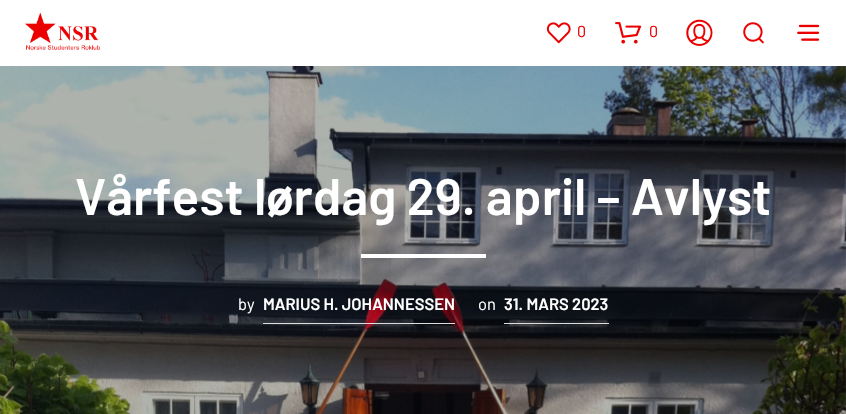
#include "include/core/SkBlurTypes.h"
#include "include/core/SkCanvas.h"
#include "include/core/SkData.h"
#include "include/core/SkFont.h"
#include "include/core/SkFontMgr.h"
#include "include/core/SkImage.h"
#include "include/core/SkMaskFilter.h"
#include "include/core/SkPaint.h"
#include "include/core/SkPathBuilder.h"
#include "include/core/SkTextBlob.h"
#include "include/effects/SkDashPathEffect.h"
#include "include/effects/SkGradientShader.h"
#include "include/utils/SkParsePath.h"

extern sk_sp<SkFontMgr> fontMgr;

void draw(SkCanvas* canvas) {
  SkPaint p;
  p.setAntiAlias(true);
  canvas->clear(SK_ColorWHITE);
  canvas->drawImageRect(SkImages::DeferredFromEncodedData(SkData::MakeFromFileName("images/1.png")), SkRect::MakeLTRB(25, 12, 100, 51), SkSamplingOptions());
  canvas->drawImageRect(SkImages::DeferredFromEncodedData(SkData::MakeFromFileName("images/2.png")), SkRect::MakeLTRB(546, 22, 571, 44), SkSamplingOptions());
  canvas->drawImageRect(SkImages::DeferredFromEncodedData(SkData::MakeFromFileName("images/3.png")), SkRect::MakeLTRB(615, 22, 642, 44), SkSamplingOptions());
  canvas->drawImageRect(SkImages::DeferredFromEncodedData(SkData::MakeFromFileName("images/4.png")), SkRect::MakeLTRB(686, 19, 713, 46), SkSamplingOptions());
  canvas->drawImageRect(SkImages::DeferredFromEncodedData(SkData::MakeFromFileName("images/5.png")), SkRect::MakeLTRB(743, 22, 764, 44), SkSamplingOptions());
  canvas->drawImageRect(SkImages::DeferredFromEncodedData(SkData::MakeFromFileName("images/6.png")), SkRect::MakeLTRB(797, 24, 820, 41), SkSamplingOptions());
  canvas->drawImageRect(SkImages::DeferredFromEncodedData(SkData::MakeFromFileName("images/7.png")), SkRect::MakeLTRB(0, 66, 846, 414), SkSamplingOptions());
  p.setColor(SK_ColorWHITE);
  canvas->drawRect(SkRect::MakeLTRB(361, 254, 486, 258), p);
  p.setColor(SkColorSetRGB(221, 221, 221));
  canvas->drawRect(SkRect::MakeLTRB(263, 323, 455, 324), p);
  canvas->drawRect(SkRect::MakeLTRB(504, 323, 609, 324), p);
  SkFont font1(fontMgr->matchFamilyStyle("Barlow", SkFontStyle::Normal()), 16);
  font1.setSubpixel(true);
  p.setColor(SkColorSetRGB(234, 0, 0));
  canvas->drawString("0", 577, 37, font1, p);
  canvas->drawString("0", 649, 37, font1, p);
  SkFont font2(fontMgr->matchFamilyStyle("Barlow", SkFontStyle(600, SkFontStyle::kNormal_Width, SkFontStyle::kUpright_Slant)), 51.25f);
  font2.setSubpixel(true);
  p.setColor(SK_ColorWHITE);
  canvas->drawString("Vårfest lørdag 29. april – Avlyst", 75, 215, font2, p);
  SkFont font3(fontMgr->matchFamilyStyle("Barlow", SkFontStyle::Normal()), 16.5f);
  font3.setSubpixel(true);
  canvas->drawString("by", 238, 310, font3, p);
  SkFont font4(fontMgr->matchFamilyStyle("Barlow", SkFontStyle(600, SkFontStyle::kNormal_Width, SkFontStyle::kUpright_Slant)), 16.5f);
  font4.setSubpixel(true);
  canvas->drawString("MARIUS H. JOHANNESSEN", 263, 310, font4, p);
  canvas->drawString("on", 478, 310, font3, p);
  canvas->drawString("31. MARS 2023", 504, 310, font4, p);
}
